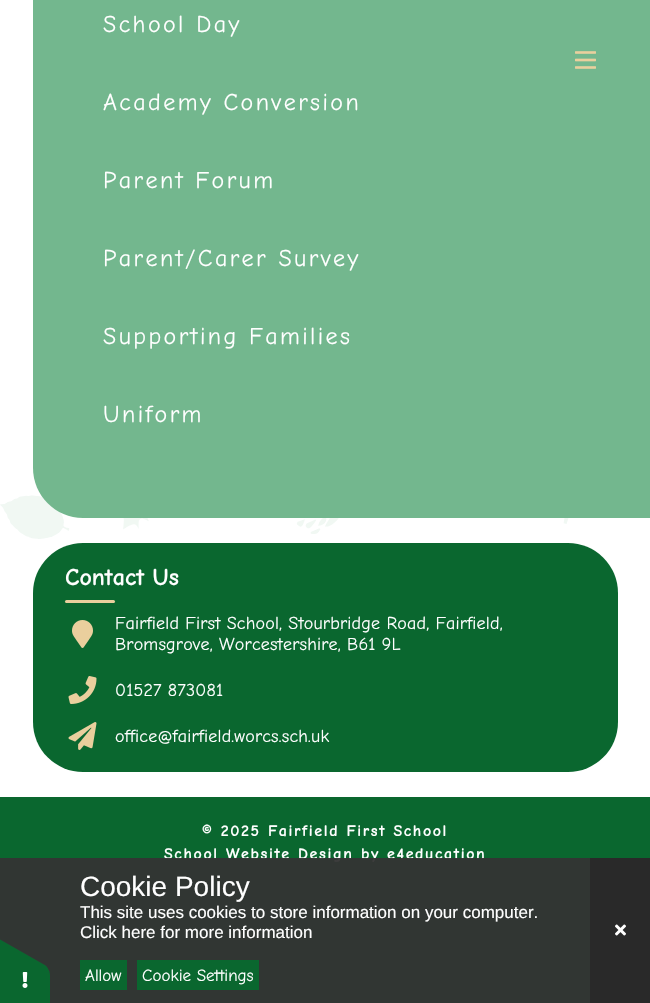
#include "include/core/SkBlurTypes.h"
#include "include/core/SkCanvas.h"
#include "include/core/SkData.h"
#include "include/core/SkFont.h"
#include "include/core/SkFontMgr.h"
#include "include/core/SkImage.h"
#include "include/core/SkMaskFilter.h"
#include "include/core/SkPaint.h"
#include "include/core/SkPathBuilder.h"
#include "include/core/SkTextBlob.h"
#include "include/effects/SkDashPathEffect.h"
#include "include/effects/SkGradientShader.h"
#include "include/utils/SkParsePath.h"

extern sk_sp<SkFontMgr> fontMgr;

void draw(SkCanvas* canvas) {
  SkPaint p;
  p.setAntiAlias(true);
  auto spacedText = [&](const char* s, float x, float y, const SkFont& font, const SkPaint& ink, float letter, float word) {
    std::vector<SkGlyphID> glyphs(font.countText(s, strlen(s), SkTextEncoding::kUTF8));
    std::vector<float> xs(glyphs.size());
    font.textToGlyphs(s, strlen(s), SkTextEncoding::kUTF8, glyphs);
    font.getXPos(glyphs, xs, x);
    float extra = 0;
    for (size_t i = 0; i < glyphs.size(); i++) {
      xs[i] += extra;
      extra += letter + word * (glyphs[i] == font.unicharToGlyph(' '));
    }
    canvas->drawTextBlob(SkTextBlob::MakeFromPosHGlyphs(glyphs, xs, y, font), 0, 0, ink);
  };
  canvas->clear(SK_ColorWHITE);
  canvas->drawImageRect(SkImages::DeferredFromEncodedData(SkData::MakeFromFileName("images/1.png")), SkRect::MakeLTRB(0, 495, 569, 539), SkSamplingOptions());
  p.setColor(SkColorSetRGB(115, 183, 142));
  canvas->drawPath(SkPathBuilder().moveTo(83, -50).lineTo(650, -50).lineTo(650, 518).lineTo(83, 518).cubicTo(55.5f, 518, 33, 495.5f, 33, 468).lineTo(33, 0).cubicTo(33, -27.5f, 55.5f, -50, 83, -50).close().detach(), p);
  canvas->drawImageRect(SkImages::DeferredFromEncodedData(SkData::MakeFromFileName("images/2.png")), SkRect::MakeLTRB(575, 51, 596, 69), SkSamplingOptions());
  p.setColor(SkColorSetRGB(10, 103, 47));
  canvas->drawRoundRect(SkRect::MakeLTRB(33, 543, 618, 772), 50, 50, p);
  p.setColor(SkColorSetRGB(234, 207, 157));
  canvas->drawRoundRect(SkRect::MakeLTRB(65, 600, 115, 603), 1.5f, 1.5f, p);
  canvas->drawImageRect(SkImages::DeferredFromEncodedData(SkData::MakeFromFileName("images/3.png")), SkRect::MakeLTRB(72, 620, 93, 648), SkSamplingOptions());
  canvas->drawImageRect(SkImages::DeferredFromEncodedData(SkData::MakeFromFileName("images/4.png")), SkRect::MakeLTRB(68, 676, 97, 704), SkSamplingOptions());
  canvas->drawImageRect(SkImages::DeferredFromEncodedData(SkData::MakeFromFileName("images/5.png")), SkRect::MakeLTRB(68, 722, 97, 750), SkSamplingOptions());
  p.setColor(SkColorSetRGB(10, 103, 47));
  canvas->drawRect(SkRect::MakeLTRB(0, 797, 650, 1003), p);
  p.setColor(SkColorSetRGB(41, 41, 41));
  canvas->drawRect(SkRect::MakeLTRB(590, 858, 650, 1003), p);
  canvas->drawImageRect(SkImages::DeferredFromEncodedData(SkData::MakeFromFileName("images/7.png")), SkRect::MakeLTRB(615, 924, 626, 936), SkSamplingOptions());
  SkFont font1(fontMgr->matchFamilyStyle("Comic Neue", SkFontStyle::Normal()), 24);
  font1.setSubpixel(true);
  p.setColor(SK_ColorWHITE);
  spacedText("School Day", 103, 32, font1, p, 2.4f, 0);
  spacedText("Academy Conversion", 103, 110, font1, p, 2.4f, 0);
  spacedText("Parent Forum", 103, 188, font1, p, 2.4f, 0);
  spacedText("Parent/Carer Survey", 103, 266, font1, p, 2.4f, 0);
  spacedText("Supporting Families", 103, 344, font1, p, 2.4f, 0);
  spacedText("Uniform", 103, 422, font1, p, 2.4f, 0);
  SkFont font2(fontMgr->matchFamilyStyle("Comic Neue", SkFontStyle::Bold()), 24);
  font2.setSubpixel(true);
  canvas->drawString("Contact Us", 65, 585, font2, p);
  SkFont font3(fontMgr->matchFamilyStyle("Comic Neue", SkFontStyle::Normal()), 18);
  font3.setSubpixel(true);
  spacedText("Fairfield First School, Stourbridge Road, Fairfield,", 115, 629, font3, p, 0.18f, 0);
  spacedText("Bromsgrove, Worcestershire, B61 9L", 115, 650, font3, p, 0.18f, 0);
  spacedText("01527 873081", 115, 696, font3, p, 0.18f, 0);
  spacedText("office@fairfield.worcs.sch.uk", 115, 742, font3, p, 0.18f, 0);
  SkFont font4(fontMgr->matchFamilyStyle("Comic Neue", SkFontStyle::Bold()), 16);
  font4.setSubpixel(true);
  spacedText("© 2025 Fairfield First School", 202, 836, font4, p, 1.6f, 0);
  spacedText("School Website Design by e4education", 164, 859, font4, p, 1.6f, 0);
  p.setColor(SkColorSetARGB(242, 51, 51, 51));
  canvas->drawRect(SkRect::MakeLTRB(0, 858, 590, 1003), p);
  p.setColor(SkColorSetRGB(10, 103, 47));
  canvas->drawPath(SkPathBuilder().moveTo(50, 976).lineTo(50, 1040).cubicTo(50, 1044, 48, 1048, 46, 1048).lineTo(-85, 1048).cubicTo(-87, 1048, -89, 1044, -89, 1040).lineTo(-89, 976).cubicTo(-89, 971, -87, 968, -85, 968).lineTo(46, 968).cubicTo(48, 968, 50, 971, 50, 976).close().detach(), p);
  canvas->drawPath(SkPathBuilder().moveTo(-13, 932).lineTo(43, 964).cubicTo(47, 966, 49, 969, 48, 971).lineTo(-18, 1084).cubicTo(-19, 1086, -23, 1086, -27, 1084).lineTo(-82, 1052).cubicTo(-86, 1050, -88, 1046, -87, 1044).lineTo(-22, 931).cubicTo(-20, 929, -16, 930, -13, 932).close().detach(), p);
  canvas->drawImageRect(SkImages::DeferredFromEncodedData(SkData::MakeFromFileName("images/6.png")), SkRect::MakeLTRB(22, 972, 28, 988), SkSamplingOptions());
  SkFont font5(fontMgr->matchFamilyStyle("Liberation Sans", SkFontStyle::Normal()), 28);
  font5.setSubpixel(true);
  p.setColor(SK_ColorWHITE);
  canvas->drawString("Cookie Policy", 80, 896, font5, p);
  SkFont font6(fontMgr->matchFamilyStyle("Liberation Sans", SkFontStyle::Normal()), 17);
  font6.setSubpixel(true);
  canvas->drawString("This site uses cookies to store information on your computer.", 80, 918, font6, p);
  canvas->drawString("Click here for more information", 80, 938, font6, p);
  p.setColor(SkColorSetRGB(10, 103, 47));
  canvas->drawRect(SkRect::MakeLTRB(80, 960, 127, 990), p);
  SkFont font7(fontMgr->matchFamilyStyle("Comic Neue", SkFontStyle::Normal()), 17);
  font7.setSubpixel(true);
  p.setColor(SK_ColorWHITE);
  canvas->drawString("Allow", 85, 981, font7, p);
  p.setColor(SkColorSetRGB(10, 103, 47));
  canvas->drawRect(SkRect::MakeLTRB(137, 960, 259, 990), p);
  p.setColor(SK_ColorWHITE);
  canvas->drawString("Cookie Settings", 142, 981, font7, p);
}
